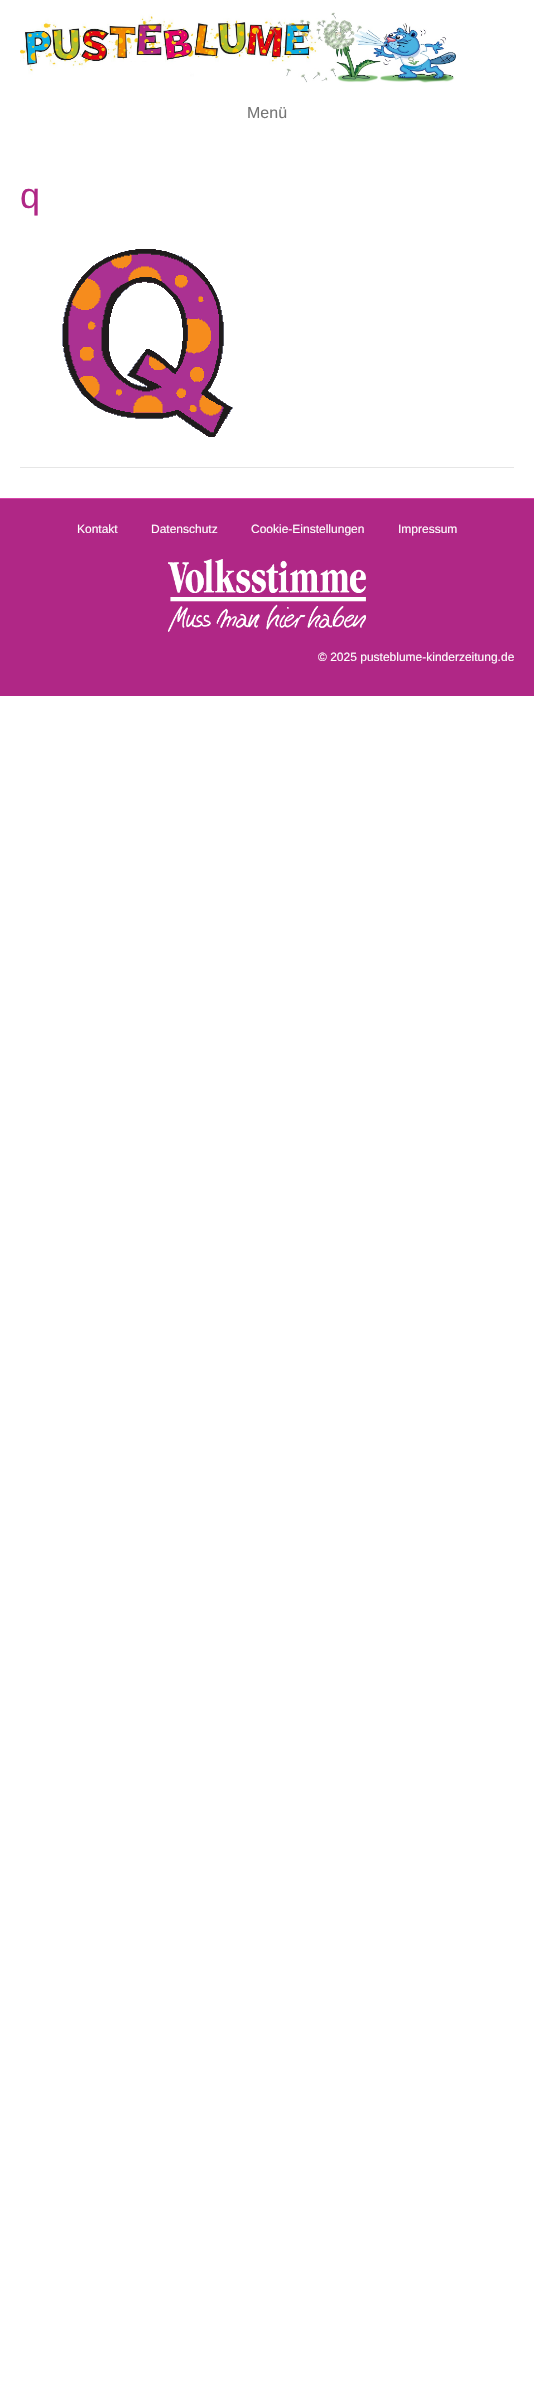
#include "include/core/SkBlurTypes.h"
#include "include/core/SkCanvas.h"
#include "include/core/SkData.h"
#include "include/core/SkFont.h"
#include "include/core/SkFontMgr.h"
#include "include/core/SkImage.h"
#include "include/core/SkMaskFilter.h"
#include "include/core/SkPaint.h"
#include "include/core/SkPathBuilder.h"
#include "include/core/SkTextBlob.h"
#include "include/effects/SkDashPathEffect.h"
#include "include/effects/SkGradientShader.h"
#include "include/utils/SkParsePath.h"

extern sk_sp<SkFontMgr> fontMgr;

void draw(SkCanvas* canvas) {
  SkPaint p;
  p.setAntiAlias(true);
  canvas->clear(SK_ColorWHITE);
  canvas->drawImageRect(SkImages::DeferredFromEncodedData(SkData::MakeFromFileName("images/1.png")), SkRect::MakeLTRB(20, 12, 456, 83), SkSamplingOptions());
  canvas->drawImageRect(SkImages::DeferredFromEncodedData(SkData::MakeFromFileName("images/2.png")), SkRect::MakeLTRB(62, 249, 233, 437), SkSamplingOptions());
  p.setColor(SkColorSetRGB(230, 230, 230));
  canvas->drawRect(SkRect::MakeLTRB(20, 467, 514, 468), p);
  p.setColor(SkColorSetRGB(176, 39, 134));
  canvas->drawRect(SkRect::MakeLTRB(0, 499, 534, 696), p);
  p.setColor(SkColorSetRGB(214, 68, 169));
  canvas->drawRect(SkRect::MakeLTRB(0, 498, 534, 499), p);
  canvas->drawImageRect(SkImages::DeferredFromEncodedData(SkData::MakeFromFileName("images/3.png")), SkRect::MakeLTRB(168, 559, 366, 632), SkSamplingOptions());
  SkFont font1(fontMgr->matchFamilyStyle("Liberation Sans", SkFontStyle::Normal()), 16);
  font1.setSubpixel(true);
  p.setColor(SkColorSetRGB(117, 117, 117));
  canvas->drawString("Menü", 247, 118, font1, p);
  SkFont font2(fontMgr->matchFamilyStyle("Liberation Sans", SkFontStyle::Normal()), 36);
  font2.setSubpixel(true);
  p.setColor(SkColorSetRGB(176, 39, 134));
  canvas->drawString("q", 20, 208, font2, p);
  SkFont font3(fontMgr->matchFamilyStyle("Liberation Sans", SkFontStyle::Normal()), 12);
  font3.setSubpixel(true);
  p.setColor(SK_ColorWHITE);
  canvas->drawString("Kontakt", 77, 533, font3, p);
  canvas->drawString("Datenschutz", 151, 533, font3, p);
  canvas->drawString("Cookie-Einstellungen", 251, 533, font3, p);
  canvas->drawString("Impressum", 398, 533, font3, p);
  canvas->drawString("© 2025 pusteblume-kinderzeitung.de", 318, 661, font3, p);
}
